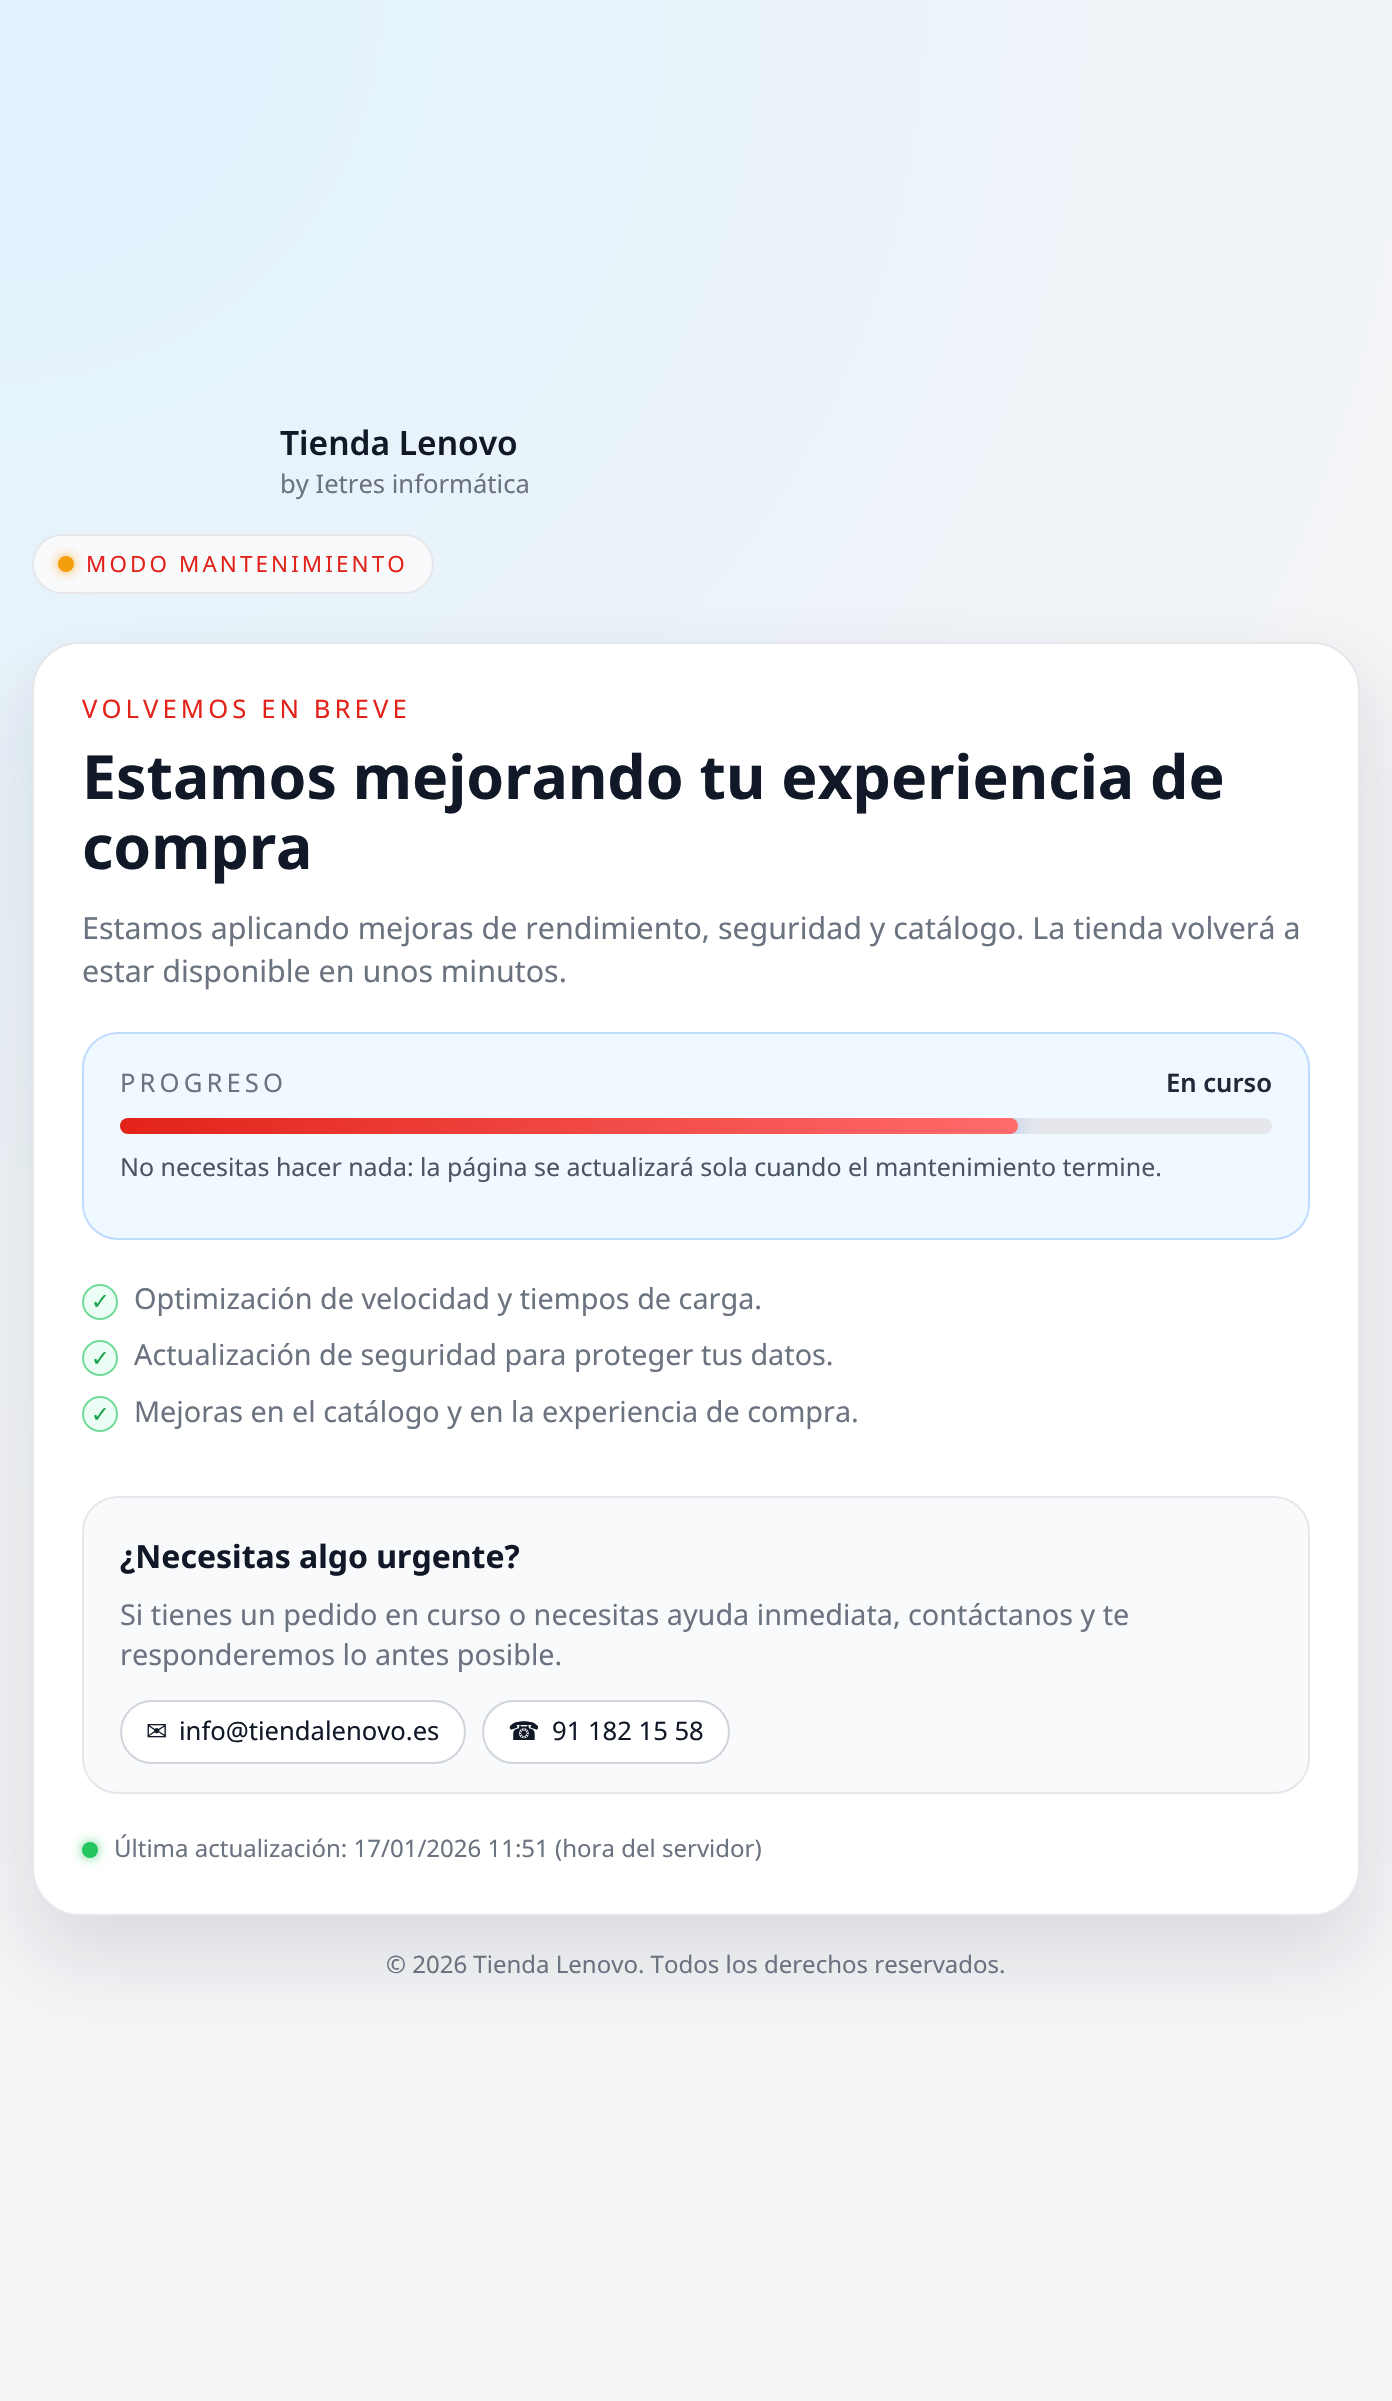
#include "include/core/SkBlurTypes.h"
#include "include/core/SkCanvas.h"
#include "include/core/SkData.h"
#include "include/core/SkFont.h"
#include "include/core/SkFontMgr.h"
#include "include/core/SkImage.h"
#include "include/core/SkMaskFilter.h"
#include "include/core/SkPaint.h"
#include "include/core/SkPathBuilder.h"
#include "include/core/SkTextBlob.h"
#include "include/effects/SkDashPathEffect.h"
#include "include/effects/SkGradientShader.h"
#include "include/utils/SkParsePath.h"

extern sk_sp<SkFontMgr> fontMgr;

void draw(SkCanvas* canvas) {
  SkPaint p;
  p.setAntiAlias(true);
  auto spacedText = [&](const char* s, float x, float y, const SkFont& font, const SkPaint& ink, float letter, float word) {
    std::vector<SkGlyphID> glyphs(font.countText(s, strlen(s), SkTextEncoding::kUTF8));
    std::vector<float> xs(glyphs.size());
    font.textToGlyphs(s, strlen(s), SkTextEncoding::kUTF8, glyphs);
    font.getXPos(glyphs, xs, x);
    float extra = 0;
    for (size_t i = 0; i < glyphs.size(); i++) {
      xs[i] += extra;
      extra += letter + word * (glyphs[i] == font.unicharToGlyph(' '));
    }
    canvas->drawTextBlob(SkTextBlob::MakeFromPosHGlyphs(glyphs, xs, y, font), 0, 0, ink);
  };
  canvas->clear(SK_ColorWHITE);
  {
    const SkColor colors[] = {SkColorSetRGB(224, 242, 254), SkColorSetRGB(243, 244, 246)};
    const float stops[] = {0, 0.55f};
    p.setShader(SkGradientShader::MakeRadial({0, 0}, 2776, colors, stops, 2, SkTileMode::kClamp));
    p.setAlpha(255);
  }
  canvas->drawRect(SkRect::MakeLTRB(0, 0, 1392, 2401), p);
  p.setShader(nullptr);
  p.setColor(SkColorSetARGB(31, 15, 23, 42));
  p.setMaskFilter(SkMaskFilter::MakeBlur(kNormal_SkBlurStyle, 40));
  canvas->drawRoundRect(SkRect::MakeLTRB(32, 678, 1360, 1952), 48, 48, p);
  p.setMaskFilter(nullptr);
  p.setColor(SkColorSetRGB(249, 250, 251));
  canvas->drawRoundRect(SkRect::MakeLTRB(33, 535, 433, 593), 29, 29, p);
  p.setStyle(SkPaint::kStroke_Style);
  p.setStrokeWidth(2);
  p.setColor(SkColorSetRGB(229, 231, 235));
  canvas->drawRoundRect(SkRect::MakeLTRB(33, 535, 433, 593), 29, 29, p);
  p.setStyle(SkPaint::kFill_Style);
  p.setColor(SkColorSetARGB(204, 245, 158, 11));
  p.setMaskFilter(SkMaskFilter::MakeBlur(kNormal_SkBlurStyle, 6));
  canvas->drawRoundRect(SkRect::MakeLTRB(58, 556, 74, 572), 8, 8, p);
  p.setMaskFilter(nullptr);
  p.setColor(SkColorSetRGB(245, 158, 11));
  canvas->drawCircle(66, 564, 8, p);
  p.setColor(SK_ColorWHITE);
  canvas->drawRoundRect(SkRect::MakeLTRB(33, 643, 1359, 1915), 47, 47, p);
  p.setStyle(SkPaint::kStroke_Style);
  p.setColor(SkColorSetRGB(229, 231, 235));
  canvas->drawRoundRect(SkRect::MakeLTRB(33, 643, 1359, 1915), 47, 47, p);
  p.setStyle(SkPaint::kFill_Style);
  p.setColor(SkColorSetRGB(240, 249, 255));
  canvas->drawRoundRect(SkRect::MakeLTRB(83, 1033, 1309, 1239), 35, 35, p);
  p.setStyle(SkPaint::kStroke_Style);
  p.setColor(SkColorSetRGB(191, 219, 254));
  canvas->drawRoundRect(SkRect::MakeLTRB(83, 1033, 1309, 1239), 35, 35, p);
  p.setStyle(SkPaint::kFill_Style);
  p.setColor(SkColorSetRGB(229, 231, 235));
  canvas->drawRoundRect(SkRect::MakeLTRB(120, 1118, 1272, 1134), 8, 8, p);
  canvas->save();
  canvas->clipPath(SkPathBuilder().moveTo(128, 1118).lineTo(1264, 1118).cubicTo(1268.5f, 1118, 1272, 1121.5f, 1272, 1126).cubicTo(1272, 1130.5f, 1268.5f, 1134, 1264, 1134).lineTo(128, 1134).cubicTo(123.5f, 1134, 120, 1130.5f, 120, 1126).cubicTo(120, 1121.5f, 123.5f, 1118, 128, 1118).close().detach(), true);
  p.setColor(SkColorSetARGB(140, 59, 130, 246));
  p.setMaskFilter(SkMaskFilter::MakeBlur(kNormal_SkBlurStyle, 12));
  canvas->drawRoundRect(SkRect::MakeLTRB(120, 1118, 1018, 1134), 8, 8, p);
  p.setMaskFilter(nullptr);
  canvas->restore();
  {
    const SkColor colors[] = {SkColorSetRGB(226, 35, 26), SkColorSetRGB(255, 107, 107)};
    const float stops[] = {0, 1};
    const SkPoint ends[] = {{120, 1126}, {1018, 1126}};
    p.setShader(SkGradientShader::MakeLinear(ends, colors, stops, 2, SkTileMode::kClamp));
    p.setAlpha(255);
  }
  canvas->drawRoundRect(SkRect::MakeLTRB(120, 1118, 1018, 1134), 8, 8, p);
  p.setShader(nullptr);
  p.setColor(SkColorSetRGB(236, 253, 245));
  canvas->drawCircle(100, 1302, 18, p);
  p.setStyle(SkPaint::kStroke_Style);
  p.setColor(SkColorSetARGB(153, 34, 197, 94));
  canvas->drawCircle(100, 1302, 17, p);
  p.setStyle(SkPaint::kFill_Style);
  p.setColor(SkColorSetRGB(236, 253, 245));
  canvas->drawCircle(100, 1358, 18, p);
  p.setStyle(SkPaint::kStroke_Style);
  p.setColor(SkColorSetARGB(153, 34, 197, 94));
  canvas->drawCircle(100, 1358, 17, p);
  p.setStyle(SkPaint::kFill_Style);
  p.setColor(SkColorSetRGB(236, 253, 245));
  canvas->drawCircle(100, 1414, 18, p);
  p.setStyle(SkPaint::kStroke_Style);
  p.setColor(SkColorSetARGB(153, 34, 197, 94));
  canvas->drawCircle(100, 1414, 17, p);
  p.setStyle(SkPaint::kFill_Style);
  p.setColor(SkColorSetRGB(249, 250, 251));
  canvas->drawRoundRect(SkRect::MakeLTRB(83, 1497, 1309, 1793), 35, 35, p);
  p.setStyle(SkPaint::kStroke_Style);
  p.setColor(SkColorSetRGB(229, 231, 235));
  canvas->drawRoundRect(SkRect::MakeLTRB(83, 1497, 1309, 1793), 35, 35, p);
  p.setStyle(SkPaint::kFill_Style);
  p.setColor(SK_ColorWHITE);
  canvas->drawRoundRect(SkRect::MakeLTRB(121, 1701, 465, 1763), 31, 31, p);
  p.setStyle(SkPaint::kStroke_Style);
  p.setColor(SkColorSetRGB(209, 213, 219));
  canvas->drawRoundRect(SkRect::MakeLTRB(121, 1701, 465, 1763), 31, 31, p);
  p.setStyle(SkPaint::kFill_Style);
  p.setColor(SK_ColorWHITE);
  canvas->drawRoundRect(SkRect::MakeLTRB(483, 1701, 729, 1763), 31, 31, p);
  p.setStyle(SkPaint::kStroke_Style);
  p.setColor(SkColorSetRGB(209, 213, 219));
  canvas->drawRoundRect(SkRect::MakeLTRB(483, 1701, 729, 1763), 31, 31, p);
  p.setStyle(SkPaint::kFill_Style);
  p.setColor(SkColorSetARGB(191, 34, 197, 94));
  p.setMaskFilter(SkMaskFilter::MakeBlur(kNormal_SkBlurStyle, 6));
  canvas->drawRoundRect(SkRect::MakeLTRB(82, 1842, 98, 1858), 8, 8, p);
  p.setMaskFilter(nullptr);
  p.setColor(SkColorSetRGB(34, 197, 94));
  canvas->drawCircle(90, 1850, 8, p);
  SkFont font1(fontMgr->matchFamilyStyle("Noto Sans", SkFontStyle(600, SkFontStyle::kNormal_Width, SkFontStyle::kUpright_Slant)), 33.5f);
  font1.setSubpixel(true);
  p.setColor(SkColorSetRGB(17, 24, 39));
  canvas->drawString("Tienda Lenovo", 280, 455, font1, p);
  SkFont font2(fontMgr->matchFamilyStyle("Noto Sans", SkFontStyle::Normal()), 25.6f);
  font2.setSubpixel(true);
  p.setColor(SkColorSetRGB(107, 114, 128));
  canvas->drawString("by Ietres informática", 280, 493, font2, p);
  SkFont font3(fontMgr->matchFamilyStyle("Noto Sans", SkFontStyle::Normal()), 22.4f);
  font3.setSubpixel(true);
  p.setColor(SkColorSetRGB(226, 35, 26));
  spacedText("MODO MANTENIMIENTO", 86, 572, font3, p, 3.1f, 0);
  spacedText("VOLVEMOS EN BREVE", 82, 718, font2, p, 4.1f, 0);
  SkFont font4(fontMgr->matchFamilyStyle("Noto Sans", SkFontStyle::Bold()), 60.75f);
  font4.setSubpixel(true);
  p.setColor(SkColorSetRGB(17, 24, 39));
  canvas->drawString("Estamos mejorando tu experiencia de", 82, 799, font4, p);
  canvas->drawString("compra", 82, 869, font4, p);
  SkFont font5(fontMgr->matchFamilyStyle("Noto Sans", SkFontStyle::Normal()), 30.4f);
  font5.setSubpixel(true);
  p.setColor(SkColorSetRGB(107, 114, 128));
  canvas->drawString("Estamos aplicando mejoras de rendimiento, seguridad y catálogo. La tienda volverá a", 82, 939, font5, p);
  canvas->drawString("estar disponible en unos minutos.", 82, 982, font5, p);
  spacedText("PROGRESO", 120, 1092, font2, p, 4.1f, 0);
  SkFont font6(fontMgr->matchFamilyStyle("Noto Sans", SkFontStyle(600, SkFontStyle::kNormal_Width, SkFontStyle::kUpright_Slant)), 25.6f);
  font6.setSubpixel(true);
  p.setColor(SkColorSetRGB(31, 41, 55));
  canvas->drawString("En curso", 1166, 1092, font6, p);
  SkFont font7(fontMgr->matchFamilyStyle("Noto Sans", SkFontStyle::Normal()), 24.95f);
  font7.setSubpixel(true);
  p.setColor(SkColorSetRGB(75, 85, 99));
  canvas->drawString("No necesitas hacer nada: la página se actualizará sola cuando el mantenimiento termine.", 120, 1176, font7, p);
  SkFont font8(fontMgr->matchFamilyStyle("DejaVu Sans", SkFontStyle::Normal()), 22.4f);
  font8.setSubpixel(true);
  p.setColor(SkColorSetRGB(22, 163, 74));
  canvas->drawString("✓", 91, 1309, font8, p);
  SkFont font9(fontMgr->matchFamilyStyle("Noto Sans", SkFontStyle::Normal()), 28.8f);
  font9.setSubpixel(true);
  p.setColor(SkColorSetRGB(107, 114, 128));
  canvas->drawString("Optimización de velocidad y tiempos de carga.", 134, 1309, font9, p);
  p.setColor(SkColorSetRGB(22, 163, 74));
  canvas->drawString("✓", 91, 1366, font8, p);
  p.setColor(SkColorSetRGB(107, 114, 128));
  canvas->drawString("Actualización de seguridad para proteger tus datos.", 134, 1365, font9, p);
  p.setColor(SkColorSetRGB(22, 163, 74));
  canvas->drawString("✓", 91, 1422, font8, p);
  p.setColor(SkColorSetRGB(107, 114, 128));
  canvas->drawString("Mejoras en el catálogo y en la experiencia de compra.", 134, 1422, font9, p);
  SkFont font10(fontMgr->matchFamilyStyle("Noto Sans", SkFontStyle::Bold()), 32);
  font10.setSubpixel(true);
  p.setColor(SkColorSetRGB(17, 24, 39));
  canvas->drawString("¿Necesitas algo urgente?", 120, 1568, font10, p);
  p.setColor(SkColorSetRGB(107, 114, 128));
  canvas->drawString("Si tienes un pedido en curso o necesitas ayuda inmediata,", 120, 1625, font9, p);
  canvas->drawString("contáctanos y te", 908, 1625, font9, p);
  canvas->drawString("responderemos lo antes posible.", 120, 1665, font9, p);
  SkFont font11(fontMgr->matchFamilyStyle("DejaVu Sans", SkFontStyle::Normal()), 25.6f);
  font11.setSubpixel(true);
  p.setColor(SkColorSetRGB(17, 24, 39));
  canvas->drawString("✉", 146, 1740, font11, p);
  canvas->drawString("info@tiendalenovo.es", 179, 1740, font2, p);
  canvas->drawString("☎", 508, 1740, font11, p);
  canvas->drawString("91 182 15 58", 552, 1740, font2, p);
  SkFont font12(fontMgr->matchFamilyStyle("Noto Sans", SkFontStyle::Normal()), 24);
  font12.setSubpixel(true);
  p.setColor(SkColorSetRGB(107, 114, 128));
  canvas->drawString("Última actualización: 17/01/2026 11:51 (hora del servidor)", 114, 1857, font12, p);
  canvas->drawString("© 2026 Tienda Lenovo. Todos los derechos reservados.", 386, 1973, font12, p);
}
